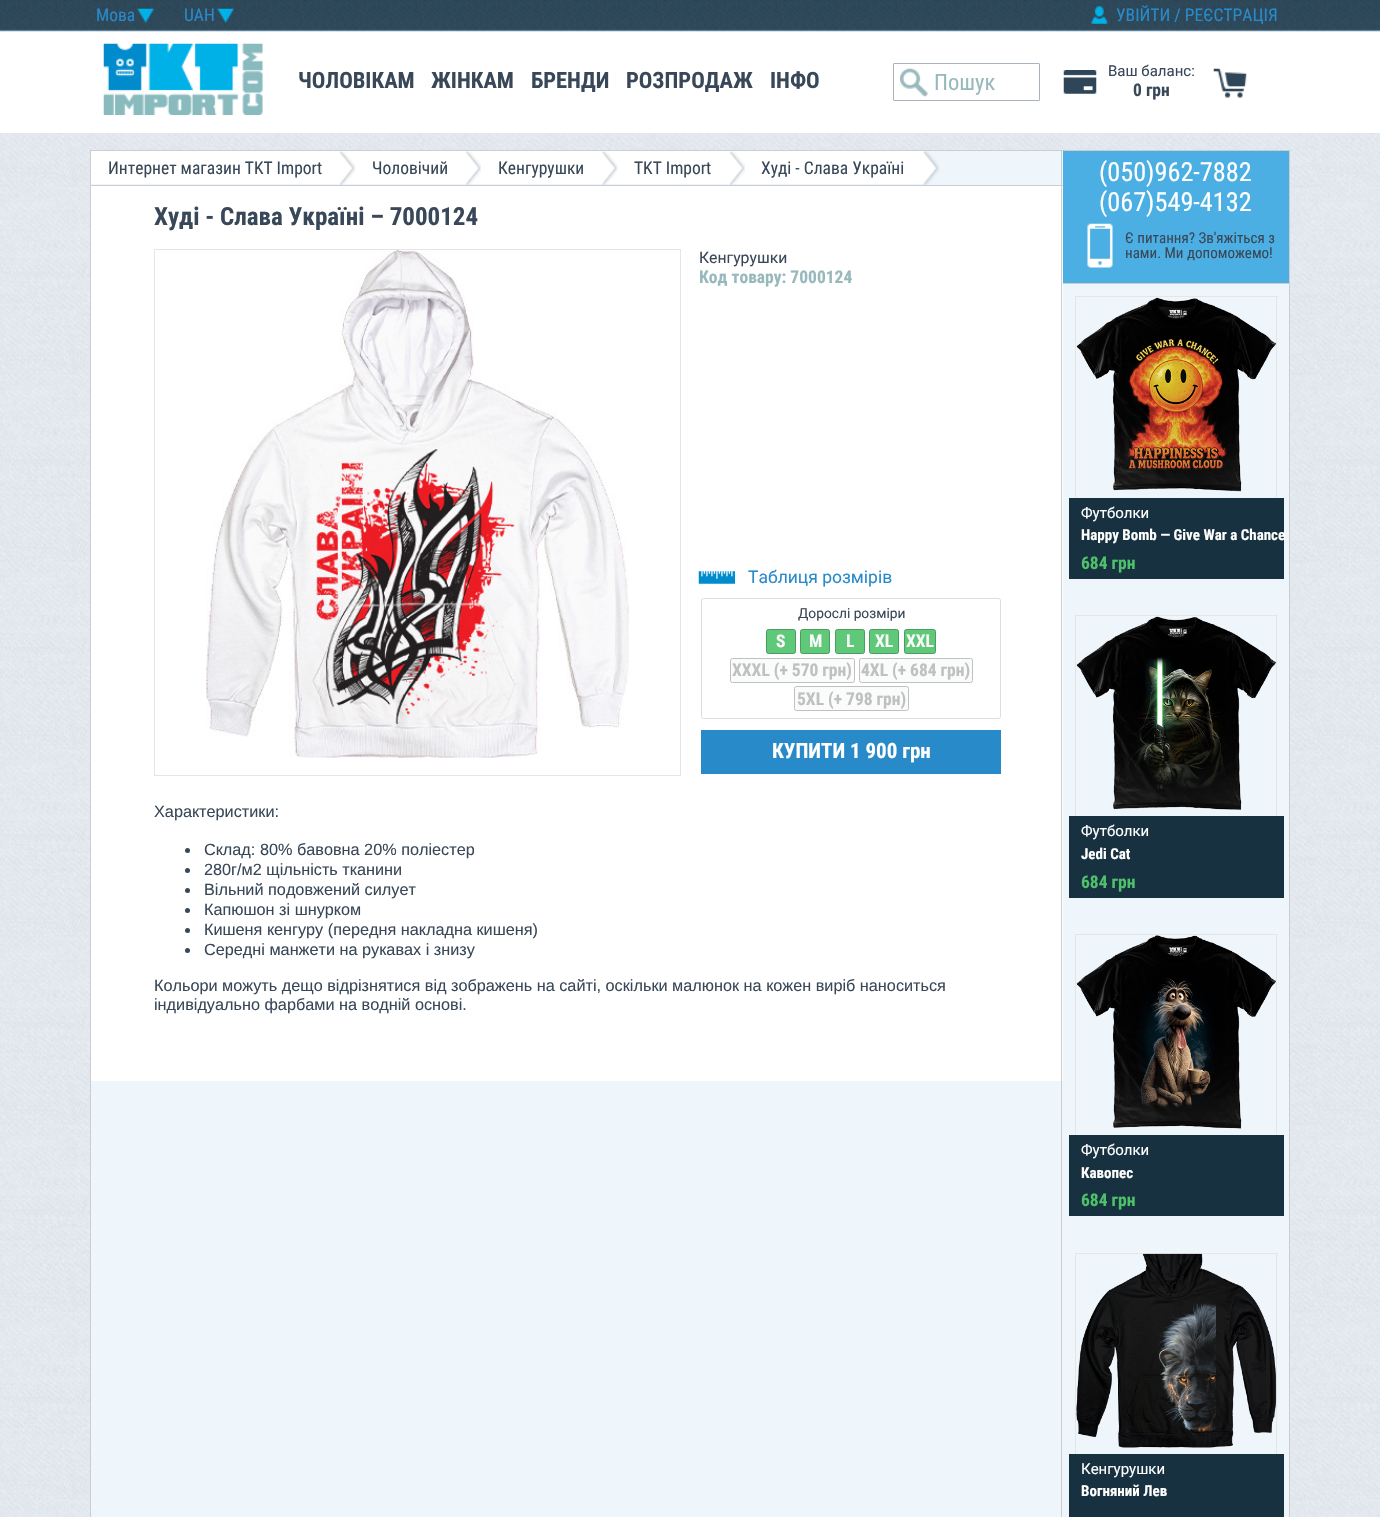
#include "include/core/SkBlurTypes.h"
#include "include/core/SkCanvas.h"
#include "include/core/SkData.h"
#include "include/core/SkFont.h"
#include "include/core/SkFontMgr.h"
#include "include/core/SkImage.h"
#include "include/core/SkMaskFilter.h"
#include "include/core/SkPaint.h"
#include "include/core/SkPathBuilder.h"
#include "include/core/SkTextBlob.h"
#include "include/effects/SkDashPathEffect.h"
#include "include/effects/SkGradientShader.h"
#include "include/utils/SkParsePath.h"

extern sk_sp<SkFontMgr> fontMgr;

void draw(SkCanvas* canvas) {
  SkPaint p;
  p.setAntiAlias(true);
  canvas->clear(SK_ColorWHITE);
  canvas->drawImageRect(SkImages::DeferredFromEncodedData(SkData::MakeFromFileName("images/1.png")), SkRect::MakeLTRB(0, 134, 1380, 1517), SkSamplingOptions());
  canvas->drawImageRect(SkImages::DeferredFromEncodedData(SkData::MakeFromFileName("images/2.png")), SkRect::MakeLTRB(0, 0, 1380, 32), SkSamplingOptions());
  p.setColor(SkColorSetRGB(230, 230, 230));
  canvas->drawRect(SkRect::MakeLTRB(0, 133, 1380, 134), p);
  canvas->drawImageRect(SkImages::DeferredFromEncodedData(SkData::MakeFromFileName("images/3.png")), SkRect::MakeLTRB(137, 8, 154, 23), SkSamplingOptions());
  canvas->drawImageRect(SkImages::DeferredFromEncodedData(SkData::MakeFromFileName("images/4.png")), SkRect::MakeLTRB(217, 8, 234, 23), SkSamplingOptions());
  canvas->drawImageRect(SkImages::DeferredFromEncodedData(SkData::MakeFromFileName("images/5.png")), SkRect::MakeLTRB(1091, 6, 1108, 24), SkSamplingOptions());
  canvas->drawImageRect(SkImages::DeferredFromEncodedData(SkData::MakeFromFileName("images/6.png")), SkRect::MakeLTRB(103, 43, 263, 115), SkSamplingOptions());
  canvas->drawImageRect(SkImages::DeferredFromEncodedData(SkData::MakeFromFileName("images/7.png")), SkRect::MakeLTRB(900, 68, 928, 97), SkSamplingOptions());
  p.setStyle(SkPaint::kStroke_Style);
  p.setStrokeWidth(1);
  p.setColor(SkColorSetRGB(168, 179, 190));
  canvas->drawRoundRect(SkRect::MakeLTRB(893.5f, 63.5f, 1039.5f, 100.5f), 0.5f, 0.5f, p);
  canvas->drawImageRect(SkImages::DeferredFromEncodedData(SkData::MakeFromFileName("images/8.png")), SkRect::MakeLTRB(1063, 70, 1097, 94), SkSamplingOptions());
  canvas->drawImageRect(SkImages::DeferredFromEncodedData(SkData::MakeFromFileName("images/9.png")), SkRect::MakeLTRB(1213, 68, 1247, 98), SkSamplingOptions());
  p.setColor(SkColorSetRGB(202, 206, 210));
  canvas->drawRect(SkRect::MakeLTRB(90.5f, 150.5f, 1289.5f, 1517.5f), p);
  p.setStyle(SkPaint::kFill_Style);
  p.setColor(SkColorSetRGB(238, 245, 251));
  canvas->drawRect(SkRect::MakeLTRB(91, 284, 1289, 1517), p);
  p.setColor(SK_ColorWHITE);
  canvas->drawRect(SkRect::MakeLTRB(91, 186, 1063, 1081), p);
  p.setStyle(SkPaint::kStroke_Style);
  p.setColor(SkColorSetRGB(229, 229, 229));
  canvas->drawRect(SkRect::MakeLTRB(154.5f, 249.5f, 680.5f, 775.5f), p);
  canvas->drawImageRect(SkImages::DeferredFromEncodedData(SkData::MakeFromFileName("images/10.png")), SkRect::MakeLTRB(206, 250, 629, 758), SkSamplingOptions());
  canvas->drawImageRect(SkImages::DeferredFromEncodedData(SkData::MakeFromFileName("images/11.png")), SkRect::MakeLTRB(698, 571, 735, 584), SkSamplingOptions());
  p.setColor(SkColorSetRGB(221, 221, 221));
  canvas->drawRoundRect(SkRect::MakeLTRB(701.5f, 598.5f, 1000.5f, 718.5f), 2, 2, p);
  p.setStyle(SkPaint::kFill_Style);
  p.setColor(SkColorSetRGB(96, 200, 121));
  canvas->drawRoundRect(SkRect::MakeLTRB(766.5f, 629.5f, 795.5f, 653.5f), 2, 2, p);
  p.setStyle(SkPaint::kStroke_Style);
  p.setColor(SkColorSetRGB(75, 156, 95));
  canvas->drawRoundRect(SkRect::MakeLTRB(766.5f, 629.5f, 795.5f, 653.5f), 2, 2, p);
  p.setStyle(SkPaint::kFill_Style);
  p.setColor(SkColorSetRGB(96, 200, 121));
  canvas->drawRoundRect(SkRect::MakeLTRB(800.5f, 629.5f, 829.5f, 653.5f), 2, 2, p);
  p.setStyle(SkPaint::kStroke_Style);
  p.setColor(SkColorSetRGB(75, 156, 95));
  canvas->drawRoundRect(SkRect::MakeLTRB(800.5f, 629.5f, 829.5f, 653.5f), 2, 2, p);
  p.setStyle(SkPaint::kFill_Style);
  p.setColor(SkColorSetRGB(96, 200, 121));
  canvas->drawRoundRect(SkRect::MakeLTRB(835.5f, 629.5f, 864.5f, 653.5f), 2, 2, p);
  p.setStyle(SkPaint::kStroke_Style);
  p.setColor(SkColorSetRGB(75, 156, 95));
  canvas->drawRoundRect(SkRect::MakeLTRB(835.5f, 629.5f, 864.5f, 653.5f), 2, 2, p);
  p.setStyle(SkPaint::kFill_Style);
  p.setColor(SkColorSetRGB(96, 200, 121));
  canvas->drawRoundRect(SkRect::MakeLTRB(869.5f, 629.5f, 898.5f, 653.5f), 2, 2, p);
  p.setStyle(SkPaint::kStroke_Style);
  p.setColor(SkColorSetRGB(75, 156, 95));
  canvas->drawRoundRect(SkRect::MakeLTRB(869.5f, 629.5f, 898.5f, 653.5f), 2, 2, p);
  p.setStyle(SkPaint::kFill_Style);
  p.setColor(SkColorSetRGB(96, 200, 121));
  canvas->drawRoundRect(SkRect::MakeLTRB(904.5f, 629.5f, 935.5f, 653.5f), 2, 2, p);
  p.setStyle(SkPaint::kStroke_Style);
  p.setColor(SkColorSetRGB(75, 156, 95));
  canvas->drawRoundRect(SkRect::MakeLTRB(904.5f, 629.5f, 935.5f, 653.5f), 2, 2, p);
  p.setStyle(SkPaint::kFill_Style);
  p.setColor(SkColorSetRGB(250, 251, 251));
  canvas->drawRoundRect(SkRect::MakeLTRB(730.5f, 658.5f, 854.5f, 682.5f), 2, 2, p);
  p.setStyle(SkPaint::kStroke_Style);
  p.setColor(SkColorSetRGB(192, 192, 192));
  canvas->drawRoundRect(SkRect::MakeLTRB(730.5f, 658.5f, 854.5f, 682.5f), 2, 2, p);
  p.setStyle(SkPaint::kFill_Style);
  p.setColor(SkColorSetRGB(250, 251, 251));
  canvas->drawRoundRect(SkRect::MakeLTRB(859.5f, 658.5f, 972.5f, 682.5f), 2, 2, p);
  p.setStyle(SkPaint::kStroke_Style);
  p.setColor(SkColorSetRGB(192, 192, 192));
  canvas->drawRoundRect(SkRect::MakeLTRB(859.5f, 658.5f, 972.5f, 682.5f), 2, 2, p);
  p.setStyle(SkPaint::kFill_Style);
  p.setColor(SkColorSetRGB(250, 251, 251));
  canvas->drawRoundRect(SkRect::MakeLTRB(794.5f, 686.5f, 908.5f, 710.5f), 2, 2, p);
  p.setStyle(SkPaint::kStroke_Style);
  p.setColor(SkColorSetRGB(192, 192, 192));
  canvas->drawRoundRect(SkRect::MakeLTRB(794.5f, 686.5f, 908.5f, 710.5f), 2, 2, p);
  p.setStyle(SkPaint::kFill_Style);
  p.setColor(SkColorSetRGB(41, 138, 202));
  canvas->drawRect(SkRect::MakeLTRB(701, 730, 1001, 774), p);
  p.setColor(SkColorSetRGB(57, 72, 88));
  canvas->drawCircle(187.5f, 850.5f, 2.5f, p);
  canvas->drawCircle(187.5f, 870.5f, 2.5f, p);
  canvas->drawCircle(187.5f, 890.5f, 2.5f, p);
  canvas->drawCircle(187.5f, 910.5f, 2.5f, p);
  canvas->drawCircle(187.5f, 930.5f, 2.5f, p);
  canvas->drawCircle(187.5f, 950.5f, 2.5f, p);
  p.setColor(SkColorSetRGB(238, 245, 251));
  canvas->drawRect(SkRect::MakeLTRB(91, 151, 1063, 185), p);
  p.setColor(SkColorSetRGB(202, 206, 210));
  canvas->drawRect(SkRect::MakeLTRB(91, 185, 1063, 186), p);
  canvas->drawRect(SkRect::MakeLTRB(1061, 151, 1062, 1517), p);
  p.setColor(SkColorSetRGB(76, 175, 228));
  canvas->drawRect(SkRect::MakeLTRB(1063, 151, 1289, 283), p);
  p.setColor(SkColorSetRGB(202, 206, 210));
  canvas->drawRect(SkRect::MakeLTRB(1063, 283, 1289, 284), p);
  canvas->drawImageRect(SkImages::DeferredFromEncodedData(SkData::MakeFromFileName("images/12.png")), SkRect::MakeLTRB(1087, 223, 1113, 268), SkSamplingOptions());
  p.setColor(SkColorSetRGB(229, 229, 229));
  canvas->drawRect(SkRect::MakeLTRB(1075, 296, 1278, 297), p);
  canvas->drawRect(SkRect::MakeLTRB(1276, 296, 1277, 498), p);
  canvas->drawRect(SkRect::MakeLTRB(1075, 296, 1076, 498), p);
  canvas->drawImageRect(SkImages::DeferredFromEncodedData(SkData::MakeFromFileName("images/13.png")), SkRect::MakeLTRB(1076, 297, 1277, 492), SkSamplingOptions());
  p.setColor(SkColorSetRGB(23, 49, 64));
  canvas->drawRect(SkRect::MakeLTRB(1069, 498, 1284, 579), p);
  p.setColor(SkColorSetRGB(229, 229, 229));
  canvas->drawRect(SkRect::MakeLTRB(1075, 615, 1278, 616), p);
  canvas->drawRect(SkRect::MakeLTRB(1276, 615, 1277, 816), p);
  canvas->drawRect(SkRect::MakeLTRB(1075, 615, 1076, 816), p);
  canvas->drawImageRect(SkImages::DeferredFromEncodedData(SkData::MakeFromFileName("images/14.png")), SkRect::MakeLTRB(1076, 616, 1277, 810), SkSamplingOptions());
  p.setColor(SkColorSetRGB(23, 49, 64));
  canvas->drawRect(SkRect::MakeLTRB(1069, 816, 1284, 898), p);
  p.setColor(SkColorSetRGB(229, 229, 229));
  canvas->drawRect(SkRect::MakeLTRB(1075, 934, 1278, 935), p);
  canvas->drawRect(SkRect::MakeLTRB(1276, 934, 1277, 1135), p);
  canvas->drawRect(SkRect::MakeLTRB(1075, 934, 1076, 1135), p);
  canvas->drawImageRect(SkImages::DeferredFromEncodedData(SkData::MakeFromFileName("images/15.png")), SkRect::MakeLTRB(1076, 935, 1276, 1129), SkSamplingOptions());
  p.setColor(SkColorSetRGB(23, 49, 64));
  canvas->drawRect(SkRect::MakeLTRB(1069, 1135, 1284, 1216), p);
  p.setColor(SkColorSetRGB(229, 229, 229));
  canvas->drawRect(SkRect::MakeLTRB(1075, 1253, 1278, 1254), p);
  canvas->drawRect(SkRect::MakeLTRB(1276, 1253, 1277, 1454), p);
  canvas->drawRect(SkRect::MakeLTRB(1075, 1253, 1076, 1454), p);
  canvas->drawImageRect(SkImages::DeferredFromEncodedData(SkData::MakeFromFileName("images/16.png")), SkRect::MakeLTRB(1076, 1253, 1277, 1448), SkSamplingOptions());
  p.setColor(SkColorSetRGB(23, 49, 64));
  canvas->drawRect(SkRect::MakeLTRB(1069, 1454, 1284, 1517), p);
  p.setColor(SK_ColorWHITE);
  canvas->drawRect(SkRect::MakeLTRB(91, 151, 924, 184), p);
  canvas->drawImageRect(SkImages::DeferredFromEncodedData(SkData::MakeFromFileName("images/17.png")), SkRect::MakeLTRB(340, 151, 355, 185), SkSamplingOptions());
  canvas->drawImageRect(SkImages::DeferredFromEncodedData(SkData::MakeFromFileName("images/18.png")), SkRect::MakeLTRB(466, 151, 481, 185), SkSamplingOptions());
  canvas->drawImageRect(SkImages::DeferredFromEncodedData(SkData::MakeFromFileName("images/19.png")), SkRect::MakeLTRB(602, 151, 618, 185), SkSamplingOptions());
  canvas->drawImageRect(SkImages::DeferredFromEncodedData(SkData::MakeFromFileName("images/20.png")), SkRect::MakeLTRB(730, 151, 745, 185), SkSamplingOptions());
  canvas->drawImageRect(SkImages::DeferredFromEncodedData(SkData::MakeFromFileName("images/21.png")), SkRect::MakeLTRB(923, 151, 939, 185), SkSamplingOptions());
  SkFont font1(fontMgr->matchFamilyStyle("Roboto Condensed", SkFontStyle::Normal()), 17.5f);
  font1.setSubpixel(true);
  p.setColor(SkColorSetRGB(41, 138, 202));
  canvas->drawString("Мова", 96, 21, font1, p);
  canvas->drawString("UAH", 184, 21, font1, p);
  canvas->drawString("УВІЙТИ / РЕЄСТРАЦІЯ", 1116, 21, font1, p);
  SkFont font2(fontMgr->matchFamilyStyle("Roboto Condensed", SkFontStyle::Bold()), 22.5f);
  font2.setSubpixel(true);
  p.setColor(SkColorSetRGB(57, 72, 88));
  canvas->drawString("ЧОЛОВІКАМ", 298, 88, font2, p);
  canvas->drawString("ЖІНКАМ", 431, 88, font2, p);
  canvas->drawString("БРЕНДИ", 531, 88, font2, p);
  canvas->drawString("РОЗПРОДАЖ", 626, 88, font2, p);
  canvas->drawString("ІНФО", 770, 88, font2, p);
  SkFont font3(fontMgr->matchFamilyStyle("Roboto Condensed", SkFontStyle::Normal()), 22.5f);
  font3.setSubpixel(true);
  p.setColor(SkColorSetRGB(152, 185, 188));
  canvas->drawString("Пошук", 934, 90, font3, p);
  SkFont font4(fontMgr->matchFamilyStyle("Roboto", SkFontStyle::Normal()), 15);
  font4.setSubpixel(true);
  p.setColor(SkColorSetRGB(57, 72, 88));
  canvas->drawString("Ваш баланс:", 1108, 76, font4, p);
  SkFont font5(fontMgr->matchFamilyStyle("Roboto Condensed", SkFontStyle::Bold()), 17.5f);
  font5.setSubpixel(true);
  canvas->drawString("0 грн", 1133, 96, font5, p);
  SkFont font6(fontMgr->matchFamilyStyle("Roboto Condensed", SkFontStyle::Bold()), 25);
  font6.setSubpixel(true);
  canvas->drawString("Худі - Слава Україні – 7000124", 154, 225, font6, p);
  SkFont font7(fontMgr->matchFamilyStyle("Roboto", SkFontStyle::Normal()), 15.75f);
  font7.setSubpixel(true);
  canvas->drawString("Кенгурушки", 699, 263, font7, p);
  p.setColor(SkColorSetRGB(152, 185, 188));
  canvas->drawString("Код товару: 7000124", 699, 283, font5, p);
  SkFont font8(fontMgr->matchFamilyStyle("Roboto", SkFontStyle::Normal()), 17.5f);
  font8.setSubpixel(true);
  p.setColor(SkColorSetRGB(41, 138, 202));
  canvas->drawString("Таблиця розмірів", 748, 583, font8, p);
  SkFont font9(fontMgr->matchFamilyStyle("Roboto", SkFontStyle::Normal()), 13.75f);
  font9.setSubpixel(true);
  p.setColor(SkColorSetRGB(57, 72, 88));
  canvas->drawString("Дорослі розміри", 798, 618, font9, p);
  p.setColor(SkColorSetRGB(249, 249, 249));
  canvas->drawString("S", 776, 647, font5, p);
  canvas->drawString("M", 809, 647, font5, p);
  canvas->drawString("L", 846, 647, font5, p);
  canvas->drawString("XL", 875, 647, font5, p);
  canvas->drawString("XXL", 906, 647, font5, p);
  p.setColor(SkColorSetRGB(192, 192, 192));
  canvas->drawString("XXXL (+ 570 грн)", 732, 676, font5, p);
  canvas->drawString("4XL (+ 684 грн)", 861, 676, font5, p);
  canvas->drawString("5XL (+ 798 грн)", 797, 705, font5, p);
  SkFont font10(fontMgr->matchFamilyStyle("Roboto Condensed", SkFontStyle::Bold()), 21);
  font10.setSubpixel(true);
  p.setColor(SK_ColorWHITE);
  canvas->drawString("КУПИТИ 1 900 грн", 772, 758, font10, p);
  SkFont font11(fontMgr->matchFamilyStyle("Liberation Sans", SkFontStyle::Normal()), 16.25f);
  font11.setSubpixel(true);
  p.setColor(SkColorSetRGB(57, 72, 88));
  canvas->drawString("Характеристики:", 154, 817, font11, p);
  canvas->drawString("Склад: 80% бавовна 20% поліестер", 204, 855, font11, p);
  canvas->drawString("280г/м2 щільність тканини", 204, 875, font11, p);
  canvas->drawString("Вільний подовжений силует", 204, 895, font11, p);
  canvas->drawString("Капюшон зі шнурком", 204, 915, font11, p);
  canvas->drawString("Кишеня кенгуру (передня накладна кишеня)", 204, 935, font11, p);
  canvas->drawString("Середні манжети на рукавах і знизу", 204, 955, font11, p);
  canvas->drawString("Кольори можуть дещо відрізнятися від зображень на сайті, оскільки малюнок на кожен виріб наноситься", 154, 991, font11, p);
  canvas->drawString("індивідуально фарбами на водній основі.", 154, 1010, font11, p);
  SkFont font12(fontMgr->matchFamilyStyle("Roboto Condensed", SkFontStyle::Normal()), 26.25f);
  font12.setSubpixel(true);
  p.setColor(SK_ColorWHITE);
  canvas->drawString("(050)962-7882", 1099, 181, font12, p);
  canvas->drawString("(067)549-4132", 1099, 211, font12, p);
  SkFont font13(fontMgr->matchFamilyStyle("Roboto Condensed", SkFontStyle::Normal()), 15);
  font13.setSubpixel(true);
  p.setColor(SkColorSetRGB(57, 72, 88));
  canvas->drawString("Є питання? Зв'яжіться з", 1125, 243, font13, p);
  canvas->drawString("нами. Ми допоможемо!", 1125, 258, font13, p);
  p.setColor(SK_ColorWHITE);
  canvas->drawString("Футболки", 1081, 518, font4, p);
  SkFont font14(fontMgr->matchFamilyStyle("Roboto Condensed", SkFontStyle::Bold()), 15);
  font14.setSubpixel(true);
  canvas->drawString("Happy Bomb — Give War a Chance", 1081, 540, font14, p);
  p.setColor(SkColorSetRGB(78, 194, 106));
  canvas->drawString("684 грн", 1081, 569, font5, p);
  p.setColor(SK_ColorWHITE);
  canvas->drawString("Футболки", 1081, 836, font4, p);
  canvas->drawString("Jedi Cat", 1081, 859, font14, p);
  p.setColor(SkColorSetRGB(78, 194, 106));
  canvas->drawString("684 грн", 1081, 888, font5, p);
  p.setColor(SK_ColorWHITE);
  canvas->drawString("Футболки", 1081, 1155, font4, p);
  canvas->drawString("Кавопес", 1081, 1178, font14, p);
  p.setColor(SkColorSetRGB(78, 194, 106));
  canvas->drawString("684 грн", 1081, 1206, font5, p);
  p.setColor(SK_ColorWHITE);
  canvas->drawString("Кенгурушки", 1081, 1474, font4, p);
  canvas->drawString("Вогняний Лев", 1081, 1496, font14, p);
  p.setColor(SkColorSetRGB(57, 72, 88));
  canvas->drawString("Интернет магазин TKT Import", 108, 174, font1, p);
  canvas->drawString("Чоловічий", 372, 174, font1, p);
  canvas->drawString("Кенгурушки", 498, 174, font1, p);
  canvas->drawString("TKT Import", 634, 174, font1, p);
  canvas->drawString("Худі - Слава Україні", 761, 174, font1, p);
}
